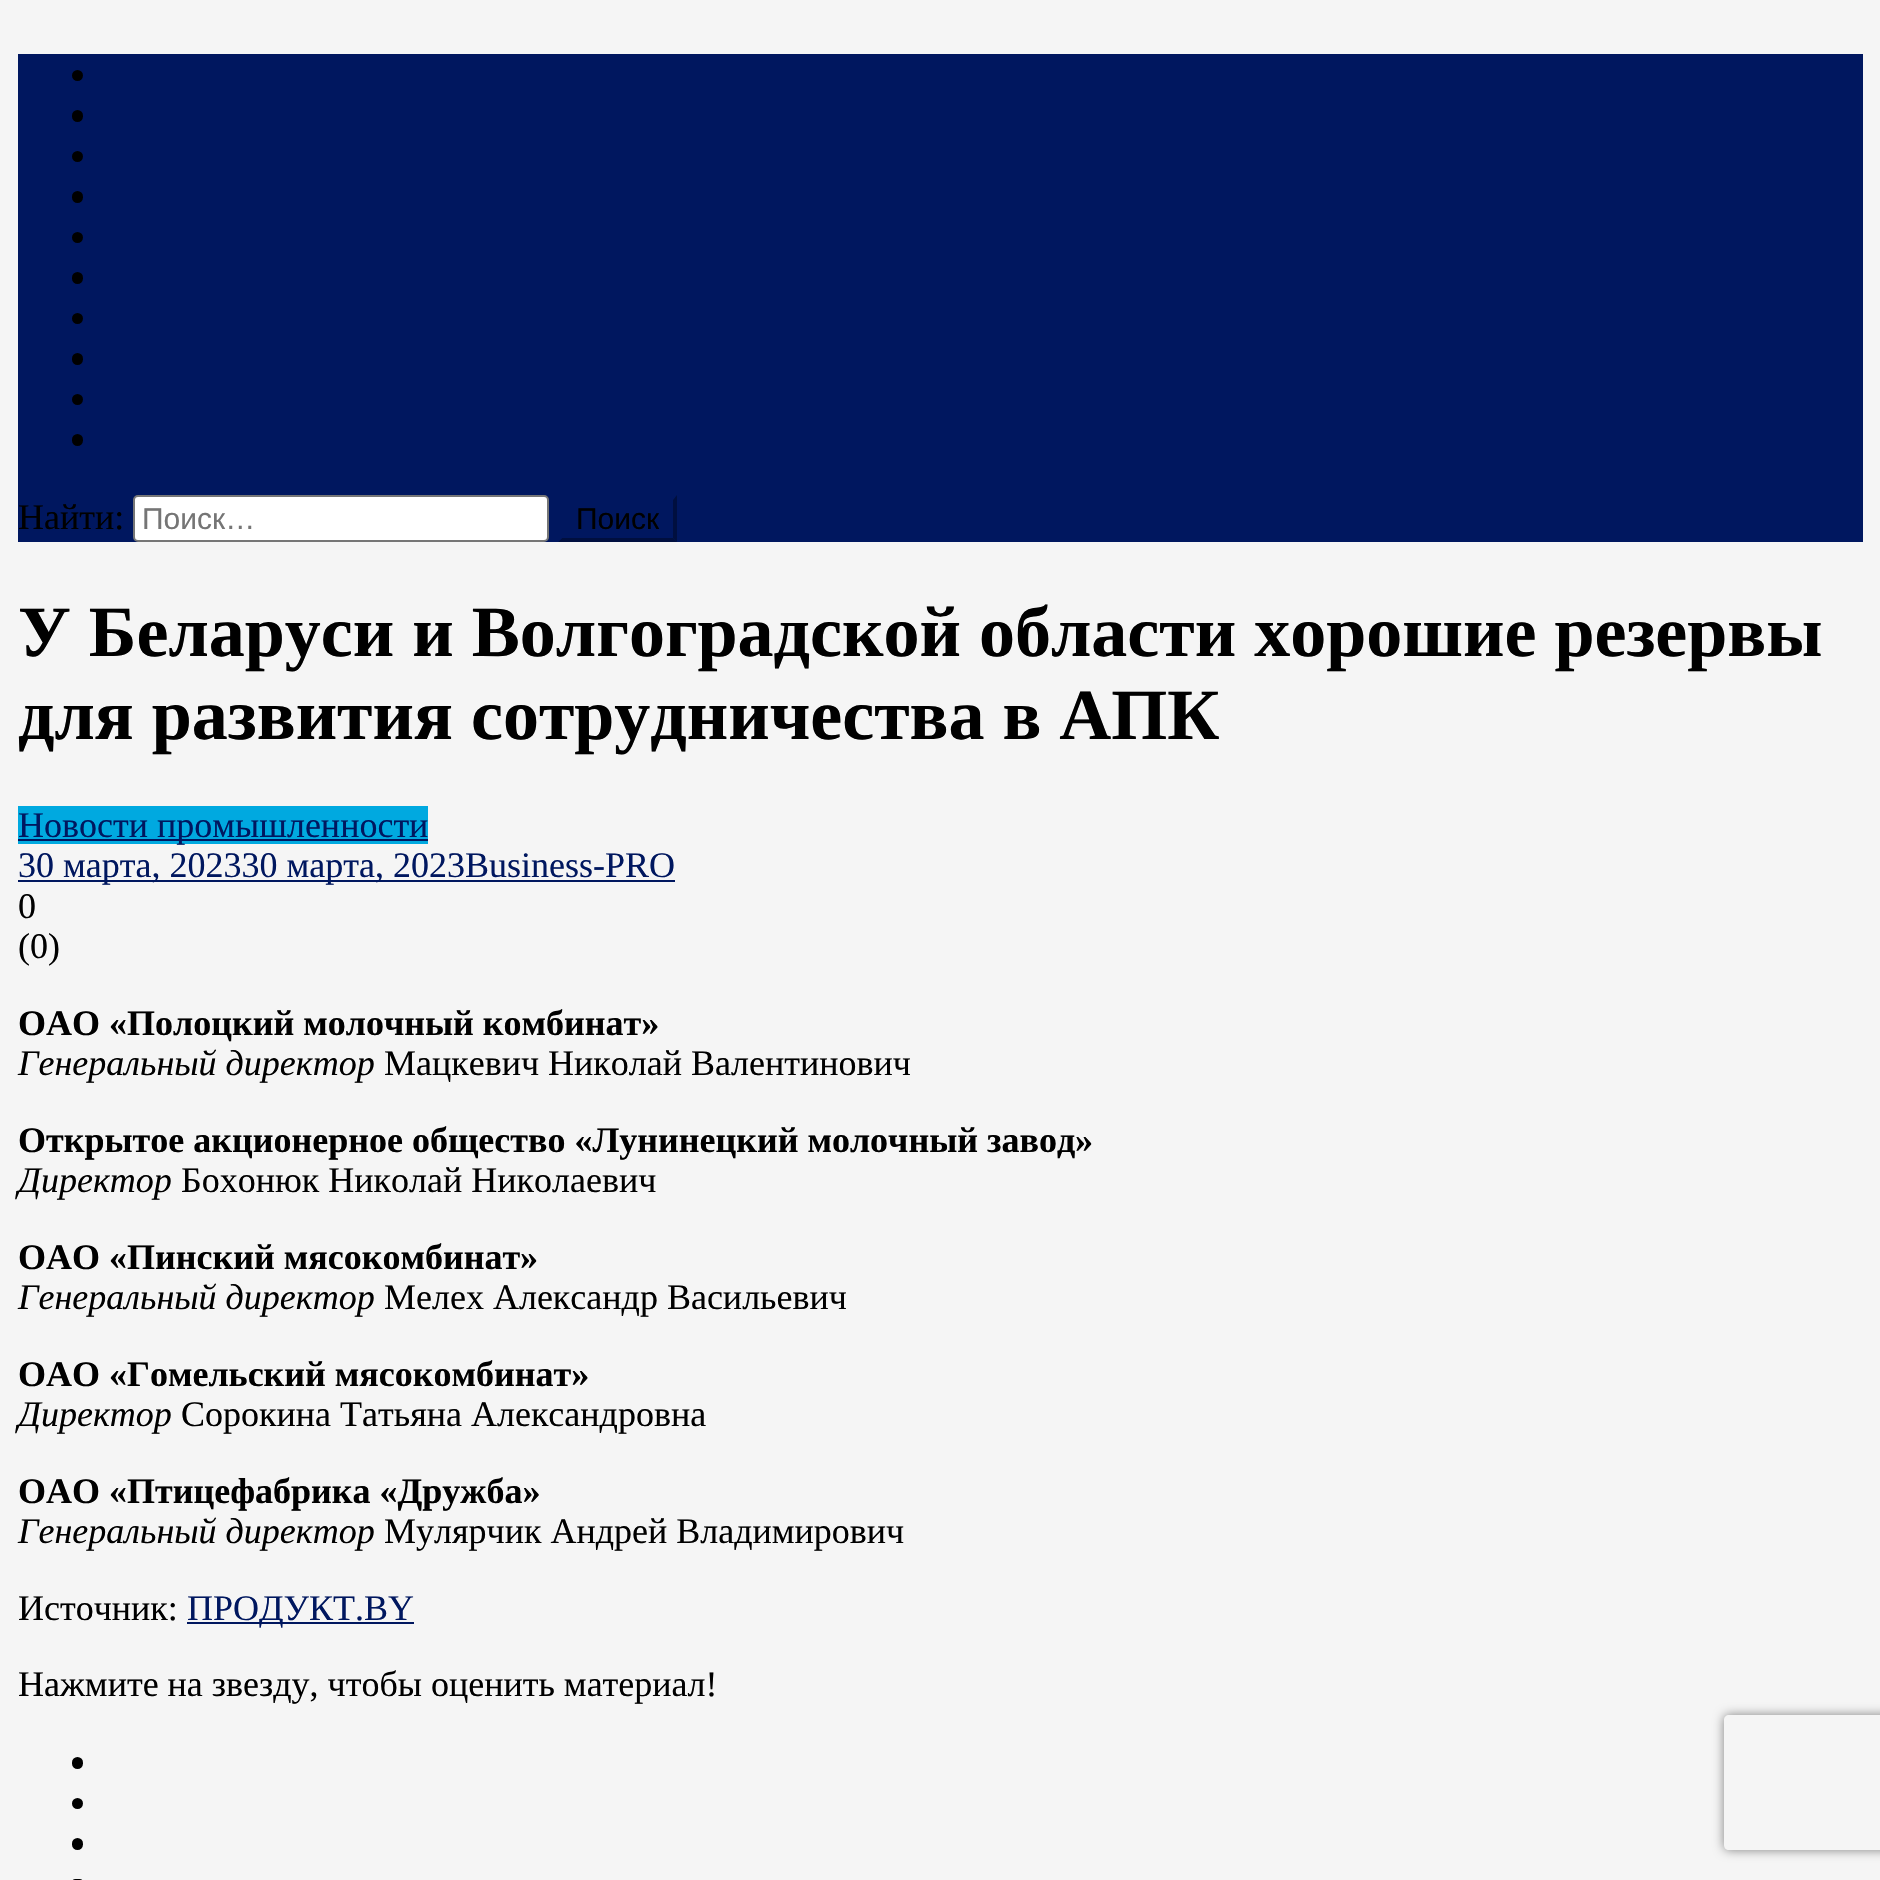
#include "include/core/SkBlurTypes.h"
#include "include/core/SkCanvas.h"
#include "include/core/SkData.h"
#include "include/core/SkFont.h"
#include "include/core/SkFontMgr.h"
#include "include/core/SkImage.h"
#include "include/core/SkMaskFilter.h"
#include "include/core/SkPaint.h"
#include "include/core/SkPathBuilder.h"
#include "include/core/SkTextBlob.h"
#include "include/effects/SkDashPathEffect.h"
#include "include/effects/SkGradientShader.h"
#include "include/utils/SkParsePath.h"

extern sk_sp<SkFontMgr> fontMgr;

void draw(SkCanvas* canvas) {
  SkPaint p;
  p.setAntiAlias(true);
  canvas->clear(SkColorSetRGB(245, 245, 245));
  p.setColor(SkColorSetRGB(0, 23, 95));
  canvas->drawRect(SkRect::MakeLTRB(18, 54, 1863, 542), p);
  p.setColor(SK_ColorBLACK);
  canvas->drawCircle(77.5f, 75.5f, 5.5f, p);
  canvas->drawRoundRect(SkRect::MakeLTRB(72, 110, 83, 122), 5.5f, 5.5f, p);
  canvas->drawCircle(77.5f, 156.5f, 5.5f, p);
  canvas->drawRoundRect(SkRect::MakeLTRB(72, 191, 83, 203), 5.5f, 5.5f, p);
  canvas->drawCircle(77.5f, 237.5f, 5.5f, p);
  canvas->drawRoundRect(SkRect::MakeLTRB(72, 272, 83, 284), 5.5f, 5.5f, p);
  canvas->drawCircle(77.5f, 318.5f, 5.5f, p);
  canvas->drawRoundRect(SkRect::MakeLTRB(72, 353, 83, 365), 5.5f, 5.5f, p);
  canvas->drawCircle(77.5f, 399.5f, 5.5f, p);
  canvas->drawRoundRect(SkRect::MakeLTRB(72, 434, 83, 446), 5.5f, 5.5f, p);
  p.setColor(SK_ColorWHITE);
  canvas->drawRoundRect(SkRect::MakeLTRB(134, 496, 548, 541), 4, 4, p);
  p.setStyle(SkPaint::kStroke_Style);
  p.setStrokeWidth(2);
  p.setColor(SkColorSetRGB(118, 118, 118));
  canvas->drawRoundRect(SkRect::MakeLTRB(134, 496, 548, 541), 4, 4, p);
  p.setStyle(SkPaint::kFill_Style);
  p.setColor(SkColorSetRGB(0, 15, 63));
  canvas->drawPath(SkPathBuilder().moveTo(677, 495).lineTo(677, 542).lineTo(673, 538).lineTo(673, 500).close().detach(), p);
  canvas->drawPath(SkPathBuilder().moveTo(677, 542).lineTo(558, 542).lineTo(562, 538).lineTo(673, 538).close().detach(), p);
  p.setColor(SkColorSetRGB(0, 23, 95));
  canvas->drawPath(SkPathBuilder().moveTo(558, 542).lineTo(558, 495).lineTo(562, 500).lineTo(562, 538).close().detach(), p);
  p.setColor(SkColorSetRGB(0, 169, 224));
  canvas->drawRect(SkRect::MakeLTRB(18, 806, 428, 844), p);
  p.setColor(SkColorSetRGB(0, 23, 95));
  canvas->drawRect(SkRect::MakeLTRB(18, 839, 428, 841), p);
  canvas->drawRect(SkRect::MakeLTRB(18, 880, 675, 882), p);
  canvas->drawRect(SkRect::MakeLTRB(187, 1622, 414, 1624), p);
  p.setColor(SK_ColorBLACK);
  canvas->drawRoundRect(SkRect::MakeLTRB(72, 1757, 83, 1769), 5.5f, 5.5f, p);
  canvas->drawCircle(77.5f, 1803.5f, 5.5f, p);
  canvas->drawRoundRect(SkRect::MakeLTRB(72, 1838, 83, 1850), 5.5f, 5.5f, p);
  canvas->drawRoundRect(SkRect::MakeLTRB(72, 1879, 83, 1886), 5.5f, 5.5f, p);
  canvas->save();
  canvas->clipPath(SkPathBuilder(SkPathFillType::kEvenOdd).moveTo(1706, 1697).lineTo(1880, 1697).lineTo(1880, 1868).lineTo(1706, 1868).close().moveTo(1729, 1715).lineTo(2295, 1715).cubicTo(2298, 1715, 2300, 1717, 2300, 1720).lineTo(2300, 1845).cubicTo(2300, 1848, 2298, 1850, 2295, 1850).lineTo(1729, 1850).cubicTo(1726, 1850, 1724, 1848, 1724, 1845).lineTo(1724, 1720).cubicTo(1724, 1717, 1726, 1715, 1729, 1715).close().detach(), true);
  p.setColor(SkColorSetRGB(128, 128, 128));
  p.setMaskFilter(SkMaskFilter::MakeBlur(kNormal_SkBlurStyle, 5.5f));
  canvas->drawRoundRect(SkRect::MakeLTRB(1724, 1715, 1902, 1850), 5, 5, p);
  p.setMaskFilter(nullptr);
  canvas->restore();
  SkFont font1(fontMgr->matchFamilyStyle("Liberation Serif", SkFontStyle::Normal()), 36);
  font1.setSubpixel(true);
  p.setColor(SK_ColorBLACK);
  canvas->drawString("Найти:", 18, 529, font1, p);
  SkFont font2(fontMgr->matchFamilyStyle("Liberation Sans", SkFontStyle::Normal()), 30);
  font2.setSubpixel(true);
  p.setColor(SkColorSetRGB(117, 117, 117));
  canvas->drawString("Поиск…", 142, 529, font2, p);
  p.setColor(SK_ColorBLACK);
  canvas->drawString("Поиск", 576, 529, font2, p);
  SkFont font3(fontMgr->matchFamilyStyle("Liberation Serif", SkFontStyle::Bold()), 72);
  font3.setSubpixel(true);
  canvas->drawString("У Беларуси и Волгоградской области хорошие резервы", 18, 656, font3, p);
  canvas->drawString("для развития сотрудничества в АПК", 18, 739, font3, p);
  p.setColor(SkColorSetRGB(0, 23, 95));
  canvas->drawString("Новости промышленности", 18, 837, font1, p);
  canvas->drawString("30 марта, 202330 марта, 2023Business-PRO", 18, 877, font1, p);
  p.setColor(SK_ColorBLACK);
  canvas->drawString("0", 18, 918, font1, p);
  canvas->drawString("(0)", 18, 958, font1, p);
  SkFont font4(fontMgr->matchFamilyStyle("Liberation Serif", SkFontStyle::Bold()), 36);
  font4.setSubpixel(true);
  canvas->drawString("ОАО «Полоцкий молочный комбинат»", 18, 1035, font4, p);
  SkFont font5(fontMgr->matchFamilyStyle("Liberation Serif", SkFontStyle::Italic()), 36);
  font5.setSubpixel(true);
  canvas->drawString("Генеральный директор", 18, 1075, font5, p);
  canvas->drawString("Мацкевич Николай Валентинович", 384, 1075, font1, p);
  canvas->drawString("Открытое акционерное общество «Лунинецкий молочный завод»", 18, 1152, font4, p);
  canvas->drawString("Директор", 18, 1192, font5, p);
  canvas->drawString("Бохонюк Николай Николаевич", 181, 1192, font1, p);
  canvas->drawString("ОАО «Пинский мясокомбинат»", 18, 1269, font4, p);
  canvas->drawString("Генеральный директор", 18, 1309, font5, p);
  canvas->drawString("Мелех Александр Васильевич", 384, 1309, font1, p);
  canvas->drawString("ОАО «Гомельский мясокомбинат»", 18, 1386, font4, p);
  canvas->drawString("Директор", 18, 1426, font5, p);
  canvas->drawString("Сорокина Татьяна Александровна", 181, 1426, font1, p);
  canvas->drawString("ОАО «Птицефабрика «Дружба»", 18, 1503, font4, p);
  canvas->drawString("Генеральный директор", 18, 1543, font5, p);
  canvas->drawString("Мулярчик Андрей Владимирович", 384, 1543, font1, p);
  canvas->drawString("Источник:", 18, 1620, font1, p);
  p.setColor(SkColorSetRGB(0, 23, 95));
  canvas->drawString("ПРОДУКТ.BY", 187, 1620, font1, p);
  p.setColor(SK_ColorBLACK);
  canvas->drawString("Нажмите на звезду, чтобы оценить материал!", 18, 1696, font1, p);
}
